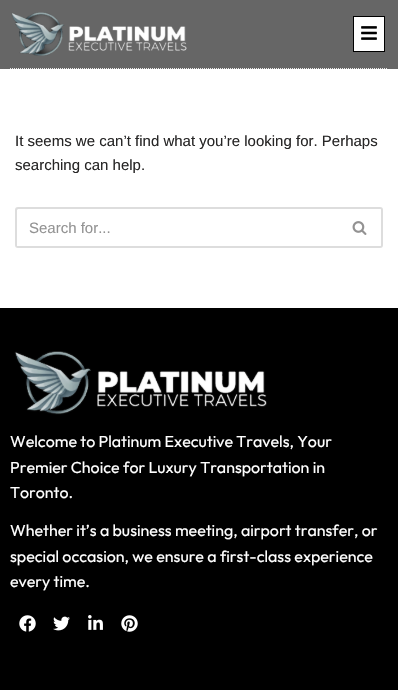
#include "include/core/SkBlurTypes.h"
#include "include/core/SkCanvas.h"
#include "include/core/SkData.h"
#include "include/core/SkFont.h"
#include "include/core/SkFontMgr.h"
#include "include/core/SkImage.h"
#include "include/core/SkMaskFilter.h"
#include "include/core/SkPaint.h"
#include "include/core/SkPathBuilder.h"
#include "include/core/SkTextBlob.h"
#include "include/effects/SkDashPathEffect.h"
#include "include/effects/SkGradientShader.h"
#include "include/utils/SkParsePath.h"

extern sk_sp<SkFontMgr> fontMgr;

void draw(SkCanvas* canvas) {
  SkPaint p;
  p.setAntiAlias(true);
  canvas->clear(SK_ColorWHITE);
  p.setColor(SkColorSetRGB(102, 102, 102));
  canvas->drawRect(SkRect::MakeLTRB(0, 0, 398, 69), p);
  p.setStyle(SkPaint::kStroke_Style);
  p.setStrokeWidth(1);
  p.setColor(SkColorSetRGB(232, 232, 232));
  p.setPathEffect(SkDashPathEffect::Make({{1, 1}}, 0));
  canvas->drawPath(SkPathBuilder().moveTo(10, 68.5f).lineTo(388, 68.5f).detach(), p);
  p.setPathEffect(nullptr);
  canvas->drawImageRect(SkImages::DeferredFromEncodedData(SkData::MakeFromFileName("images/1.png")), SkRect::MakeLTRB(11, 12, 187, 56), SkSamplingOptions());
  p.setStyle(SkPaint::kFill_Style);
  p.setColor(SK_ColorWHITE);
  canvas->drawRect(SkRect::MakeLTRB(353.5f, 16.5f, 384.5f, 51.5f), p);
  p.setStyle(SkPaint::kStroke_Style);
  p.setColor(SK_ColorBLACK);
  canvas->drawRect(SkRect::MakeLTRB(353.5f, 16.5f, 384.5f, 51.5f), p);
  canvas->drawImageRect(SkImages::DeferredFromEncodedData(SkData::MakeFromFileName("images/2.png")), SkRect::MakeLTRB(361, 26, 377, 40), SkSamplingOptions());
  p.setStyle(SkPaint::kFill_Style);
  p.setColor(SkColorSetRGB(221, 221, 221));
  canvas->drawPath(SkPathBuilder(SkPathFillType::kEvenOdd).moveTo(18, 207).lineTo(338, 207).lineTo(338, 248).lineTo(18, 248).cubicTo(16, 248, 15, 247, 15, 245).lineTo(15, 210).cubicTo(15, 208, 16, 207, 18, 207).close().moveTo(18, 209).lineTo(338, 209).lineTo(338, 246).lineTo(18, 246).lineTo(17, 246).lineTo(17, 210).close().detach(), p);
  canvas->drawPath(SkPathBuilder(SkPathFillType::kEvenOdd).moveTo(338, 207).lineTo(380, 207).cubicTo(382, 207, 383, 208, 383, 210).lineTo(383, 245).cubicTo(383, 247, 382, 248, 380, 248).lineTo(338, 248).close().moveTo(338, 209).lineTo(380, 209).cubicTo(381, 209, 381, 209, 381, 210).lineTo(381, 245).cubicTo(381, 246, 381, 246, 380, 246).lineTo(338, 246).close().detach(), p);
  canvas->drawImageRect(SkImages::DeferredFromEncodedData(SkData::MakeFromFileName("images/3.png")), SkRect::MakeLTRB(352, 221, 367, 235), SkSamplingOptions());
  p.setColor(SK_ColorBLACK);
  canvas->drawRect(SkRect::MakeLTRB(0, 308, 398, 690), p);
  canvas->drawImageRect(SkImages::DeferredFromEncodedData(SkData::MakeFromFileName("images/4.png")), SkRect::MakeLTRB(14, 351, 267, 415), SkSamplingOptions());
  canvas->drawImageRect(SkImages::DeferredFromEncodedData(SkData::MakeFromFileName("images/5.png")), SkRect::MakeLTRB(19, 615, 36, 632), SkSamplingOptions());
  canvas->drawImageRect(SkImages::DeferredFromEncodedData(SkData::MakeFromFileName("images/6.png")), SkRect::MakeLTRB(53, 616, 70, 631), SkSamplingOptions());
  canvas->drawImageRect(SkImages::DeferredFromEncodedData(SkData::MakeFromFileName("images/7.png")), SkRect::MakeLTRB(88, 615, 103, 630), SkSamplingOptions());
  canvas->drawImageRect(SkImages::DeferredFromEncodedData(SkData::MakeFromFileName("images/8.png")), SkRect::MakeLTRB(121, 615, 138, 632), SkSamplingOptions());
  SkFont font1(fontMgr->matchFamilyStyle("Liberation Sans", SkFontStyle::Normal()), 15);
  font1.setSubpixel(true);
  p.setColor(SkColorSetRGB(39, 38, 38));
  canvas->drawString("It seems we can’t find what you’re looking for. Perhaps", 15, 146, font1, p);
  canvas->drawString("searching can help.", 15, 170, font1, p);
  p.setColor(SkColorSetRGB(147, 147, 147));
  canvas->drawString("Search for...", 29, 233, font1, p);
  SkFont font2(fontMgr->matchFamilyStyle("Outfit", SkFontStyle::Normal()), 16);
  font2.setSubpixel(true);
  p.setColor(SK_ColorWHITE);
  canvas->drawString("Welcome to Platinum Executive Travels, Your", 10, 447, font2, p);
  canvas->drawString("Premier Choice for Luxury Transportation in", 10, 473, font2, p);
  canvas->drawString("Toronto.", 10, 498, font2, p);
  canvas->drawString("Whether it’s a business meeting, airport transfer, or", 10, 536, font2, p);
  canvas->drawString("special occasion, we ensure a first-class experience", 10, 562, font2, p);
  canvas->drawString("every time.", 10, 587, font2, p);
}
